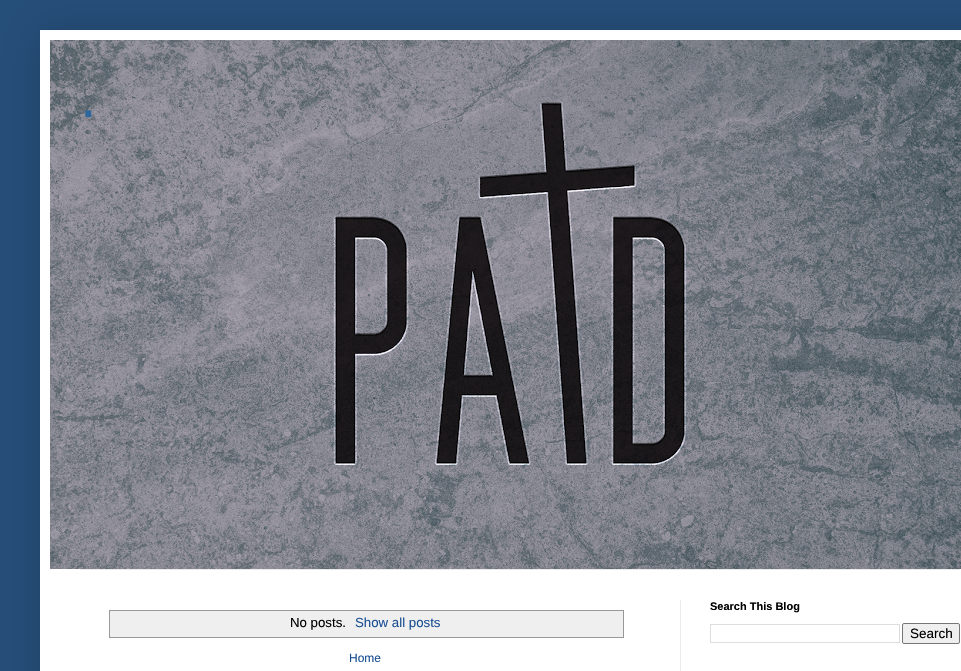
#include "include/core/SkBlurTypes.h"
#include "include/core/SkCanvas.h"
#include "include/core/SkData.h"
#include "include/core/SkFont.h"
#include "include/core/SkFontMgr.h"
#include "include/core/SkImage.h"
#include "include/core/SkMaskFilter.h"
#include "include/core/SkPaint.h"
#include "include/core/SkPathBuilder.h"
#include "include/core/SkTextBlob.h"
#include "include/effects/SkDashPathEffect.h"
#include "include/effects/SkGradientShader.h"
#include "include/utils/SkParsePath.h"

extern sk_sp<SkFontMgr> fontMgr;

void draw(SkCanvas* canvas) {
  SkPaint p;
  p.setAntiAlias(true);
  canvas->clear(SkColorSetRGB(37, 78, 121));
  p.setColor(SkColorSetARGB(38, 0, 0, 0));
  p.setMaskFilter(SkMaskFilter::MakeBlur(kNormal_SkBlurStyle, 20));
  canvas->drawRect(SkRect::MakeLTRB(40, 30, 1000, 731), p);
  p.setMaskFilter(nullptr);
  p.setColor(SK_ColorWHITE);
  canvas->drawRect(SkRect::MakeLTRB(40, 30, 961, 671), p);
  canvas->drawImageRect(SkImages::DeferredFromEncodedData(SkData::MakeFromFileName("images/1.png")), SkRect::MakeLTRB(50, 40, 961, 569), SkSamplingOptions());
  p.setColor(SkColorSetRGB(234, 234, 234));
  canvas->drawRect(SkRect::MakeLTRB(80, 569, 960, 570), p);
  canvas->drawRect(SkRect::MakeLTRB(680, 600, 681, 671), p);
  p.setStyle(SkPaint::kStroke_Style);
  p.setStrokeWidth(1);
  p.setColor(SkColorSetRGB(153, 153, 153));
  canvas->drawRect(SkRect::MakeLTRB(109.5f, 610.5f, 623.5f, 637.5f), p);
  p.setStyle(SkPaint::kFill_Style);
  p.setColor(SkColorSetRGB(239, 239, 239));
  canvas->drawRect(SkRect::MakeLTRB(110, 611, 623, 637), p);
  p.setStyle(SkPaint::kStroke_Style);
  p.setColor(SkColorSetRGB(221, 221, 221));
  canvas->drawRect(SkRect::MakeLTRB(710.5f, 624.5f, 899.5f, 642.5f), p);
  p.setStyle(SkPaint::kFill_Style);
  p.setColor(SkColorSetRGB(239, 239, 239));
  canvas->drawRoundRect(SkRect::MakeLTRB(902.5f, 623.5f, 959.5f, 643.5f), 1.5f, 1.5f, p);
  p.setStyle(SkPaint::kStroke_Style);
  p.setColor(SkColorSetRGB(118, 118, 118));
  canvas->drawRoundRect(SkRect::MakeLTRB(902.5f, 623.5f, 959.5f, 643.5f), 1.5f, 1.5f, p);
  SkFont font1(fontMgr->matchFamilyStyle("Liberation Sans", SkFontStyle::Normal()), 60);
  font1.setSubpixel(true);
  p.setStyle(SkPaint::kFill_Style);
  p.setColor(SkColorSetRGB(43, 103, 157));
  canvas->drawString(".", 80, 117, font1, p);
  SkFont font2(fontMgr->matchFamilyStyle("Liberation Sans", SkFontStyle::Normal()), 13.25f);
  font2.setSubpixel(true);
  p.setColor(SK_ColorBLACK);
  canvas->drawString("No posts.", 290, 627, font2, p);
  p.setColor(SkColorSetRGB(27, 80, 148));
  canvas->drawString("Show all posts", 355, 627, font2, p);
  SkFont font3(fontMgr->matchFamilyStyle("Liberation Sans", SkFontStyle::Normal()), 12);
  font3.setSubpixel(true);
  canvas->drawString("Home", 349, 662, font3, p);
  SkFont font4(fontMgr->matchFamilyStyle("Liberation Sans", SkFontStyle::Bold()), 11);
  font4.setSubpixel(true);
  p.setColor(SK_ColorBLACK);
  canvas->drawString("Search This Blog", 710, 610, font4, p);
  SkFont font5(fontMgr->matchFamilyStyle("Liberation Sans", SkFontStyle::Normal()), 13.5f);
  font5.setSubpixel(true);
  canvas->drawString("Search", 910, 638, font5, p);
}
